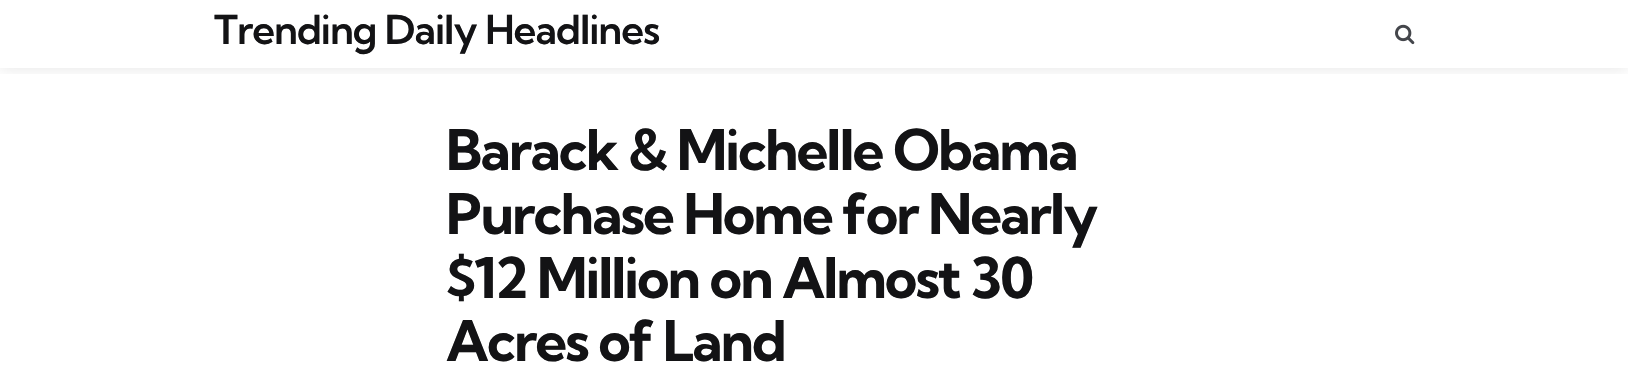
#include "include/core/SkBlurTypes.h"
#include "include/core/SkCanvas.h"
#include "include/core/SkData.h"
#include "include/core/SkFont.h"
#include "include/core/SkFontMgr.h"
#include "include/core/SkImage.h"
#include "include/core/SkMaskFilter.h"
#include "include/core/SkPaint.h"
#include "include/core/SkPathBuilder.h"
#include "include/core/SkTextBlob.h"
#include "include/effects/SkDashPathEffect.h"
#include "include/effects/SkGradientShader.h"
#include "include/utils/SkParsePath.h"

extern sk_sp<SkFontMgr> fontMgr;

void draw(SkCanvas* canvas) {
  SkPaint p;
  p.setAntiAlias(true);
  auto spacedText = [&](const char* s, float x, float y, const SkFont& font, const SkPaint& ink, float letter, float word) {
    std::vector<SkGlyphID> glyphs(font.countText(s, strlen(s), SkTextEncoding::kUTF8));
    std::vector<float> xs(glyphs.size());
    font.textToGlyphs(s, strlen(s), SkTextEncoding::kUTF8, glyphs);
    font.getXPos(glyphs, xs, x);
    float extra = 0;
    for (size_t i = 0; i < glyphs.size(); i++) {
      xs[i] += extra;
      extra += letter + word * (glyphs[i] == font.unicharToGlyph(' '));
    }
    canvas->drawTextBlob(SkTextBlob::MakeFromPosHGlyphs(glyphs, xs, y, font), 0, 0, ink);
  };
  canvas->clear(SK_ColorWHITE);
  canvas->save();
  canvas->clipRect(SkRect::MakeLTRB(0, 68, 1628, 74));
  p.setColor(SkColorSetARGB(26, 0, 0, 0));
  p.setMaskFilter(SkMaskFilter::MakeBlur(kNormal_SkBlurStyle, 7.5f));
  canvas->drawRect(SkRect::MakeLTRB(0, 0, 1628, 68), p);
  p.setMaskFilter(nullptr);
  canvas->restore();
  canvas->drawImageRect(SkImages::DeferredFromEncodedData(SkData::MakeFromFileName("images/1.png")), SkRect::MakeLTRB(1395, 24, 1415, 45), SkSamplingOptions());
  SkFont font1(fontMgr->matchFamilyStyle("Kumbh Sans", SkFontStyle(600, SkFontStyle::kNormal_Width, SkFontStyle::kUpright_Slant)), 40);
  font1.setSubpixel(true);
  p.setColor(SkColorSetRGB(19, 19, 21));
  spacedText("Trending Daily Headlines", 214, 44, font1, p, -1, 0);
  SkFont font2(fontMgr->matchFamilyStyle("Kumbh Sans", SkFontStyle::Bold()), 56);
  font2.setSubpixel(true);
  spacedText("Barack & Michelle Obama", 446, 170, font2, p, -2, 0);
  spacedText("Purchase Home for Nearly", 446, 234, font2, p, -2, 0);
  spacedText("$12 Million on Almost 30", 446, 298, font2, p, -2, 0);
  spacedText("Acres of Land", 446, 361, font2, p, -2, 0);
}
